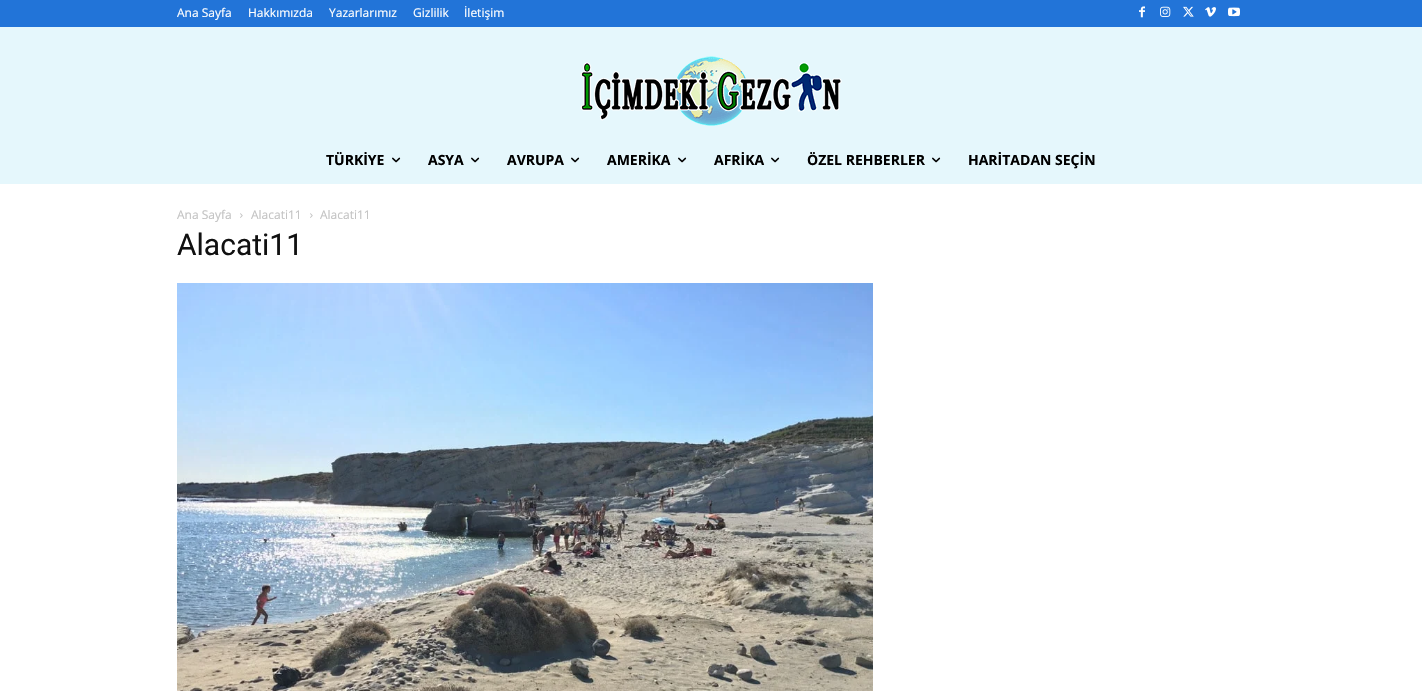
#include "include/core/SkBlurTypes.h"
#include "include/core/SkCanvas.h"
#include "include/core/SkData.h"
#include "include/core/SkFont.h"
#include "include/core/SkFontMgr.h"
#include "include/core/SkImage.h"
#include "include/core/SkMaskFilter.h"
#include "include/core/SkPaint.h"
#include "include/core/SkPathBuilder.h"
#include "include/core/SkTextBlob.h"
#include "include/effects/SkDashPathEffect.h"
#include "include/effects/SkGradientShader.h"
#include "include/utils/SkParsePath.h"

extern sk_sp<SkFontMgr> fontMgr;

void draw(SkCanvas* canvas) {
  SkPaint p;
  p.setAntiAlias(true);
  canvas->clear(SK_ColorWHITE);
  p.setColor(SkColorSetRGB(34, 116, 216));
  canvas->drawRect(SkRect::MakeLTRB(0, 0, 1422, 27), p);
  canvas->drawImageRect(SkImages::DeferredFromEncodedData(SkData::MakeFromFileName("images/1.png")), SkRect::MakeLTRB(1139, 6, 1145, 18), SkSamplingOptions());
  canvas->drawImageRect(SkImages::DeferredFromEncodedData(SkData::MakeFromFileName("images/2.png")), SkRect::MakeLTRB(1160, 6, 1171, 17), SkSamplingOptions());
  canvas->drawImageRect(SkImages::DeferredFromEncodedData(SkData::MakeFromFileName("images/3.png")), SkRect::MakeLTRB(1183, 6, 1194, 17), SkSamplingOptions());
  canvas->drawImageRect(SkImages::DeferredFromEncodedData(SkData::MakeFromFileName("images/4.png")), SkRect::MakeLTRB(1205, 7, 1216, 17), SkSamplingOptions());
  canvas->drawImageRect(SkImages::DeferredFromEncodedData(SkData::MakeFromFileName("images/5.png")), SkRect::MakeLTRB(1228, 7, 1240, 17), SkSamplingOptions());
  p.setColor(SkColorSetRGB(229, 247, 252));
  canvas->drawRect(SkRect::MakeLTRB(0, 27, 1422, 184), p);
  canvas->drawImageRect(SkImages::DeferredFromEncodedData(SkData::MakeFromFileName("images/6.png")), SkRect::MakeLTRB(580, 56, 842, 126), SkSamplingOptions());
  canvas->drawImageRect(SkImages::DeferredFromEncodedData(SkData::MakeFromFileName("images/7.png")), SkRect::MakeLTRB(392, 157, 401, 163), SkSamplingOptions());
  canvas->drawImageRect(SkImages::DeferredFromEncodedData(SkData::MakeFromFileName("images/7.png")), SkRect::MakeLTRB(471, 157, 480, 163), SkSamplingOptions());
  canvas->drawImageRect(SkImages::DeferredFromEncodedData(SkData::MakeFromFileName("images/7.png")), SkRect::MakeLTRB(571, 157, 580, 163), SkSamplingOptions());
  canvas->drawImageRect(SkImages::DeferredFromEncodedData(SkData::MakeFromFileName("images/7.png")), SkRect::MakeLTRB(678, 157, 687, 163), SkSamplingOptions());
  canvas->drawImageRect(SkImages::DeferredFromEncodedData(SkData::MakeFromFileName("images/7.png")), SkRect::MakeLTRB(771, 157, 780, 163), SkSamplingOptions());
  canvas->drawImageRect(SkImages::DeferredFromEncodedData(SkData::MakeFromFileName("images/7.png")), SkRect::MakeLTRB(932, 157, 941, 163), SkSamplingOptions());
  canvas->drawImageRect(SkImages::DeferredFromEncodedData(SkData::MakeFromFileName("images/8.png")), SkRect::MakeLTRB(240, 213, 243, 218), SkSamplingOptions());
  canvas->drawImageRect(SkImages::DeferredFromEncodedData(SkData::MakeFromFileName("images/8.png")), SkRect::MakeLTRB(310, 213, 313, 218), SkSamplingOptions());
  canvas->drawImageRect(SkImages::DeferredFromEncodedData(SkData::MakeFromFileName("images/9.png")), SkRect::MakeLTRB(177, 283, 873, 691), SkSamplingOptions());
  SkFont font1(fontMgr->matchFamilyStyle("Open Sans", SkFontStyle::Normal()), 12);
  font1.setSubpixel(true);
  p.setColor(SK_ColorWHITE);
  canvas->drawString("Ana Sayfa", 177, 17, font1, p);
  canvas->drawString("Hakkımızda", 248, 17, font1, p);
  canvas->drawString("Yazarlarımız", 329, 17, font1, p);
  canvas->drawString("Gizlilik", 413, 17, font1, p);
  canvas->drawString("İletişim", 464, 17, font1, p);
  SkFont font2(fontMgr->matchFamilyStyle("Open Sans", SkFontStyle::Bold()), 14);
  font2.setSubpixel(true);
  p.setColor(SK_ColorBLACK);
  canvas->drawString("TÜRKİYE", 326, 165, font2, p);
  canvas->drawString("ASYA", 428, 165, font2, p);
  canvas->drawString("AVRUPA", 507, 165, font2, p);
  canvas->drawString("AMERİKA", 607, 165, font2, p);
  canvas->drawString("AFRİKA", 714, 165, font2, p);
  canvas->drawString("ÖZEL REHBERLER", 807, 165, font2, p);
  canvas->drawString("HARİTADAN SEÇİN", 968, 165, font2, p);
  p.setColor(SkColorSetRGB(195, 195, 195));
  canvas->drawString("Ana Sayfa", 177, 219, font1, p);
  canvas->drawString("Alacati11", 251, 219, font1, p);
  canvas->drawString("Alacati11", 320, 219, font1, p);
  SkFont font3(fontMgr->matchFamilyStyle("Roboto", SkFontStyle::Normal()), 30);
  font3.setSubpixel(true);
  p.setColor(SkColorSetRGB(17, 17, 17));
  canvas->drawString("Alacati11", 177, 255, font3, p);
}
